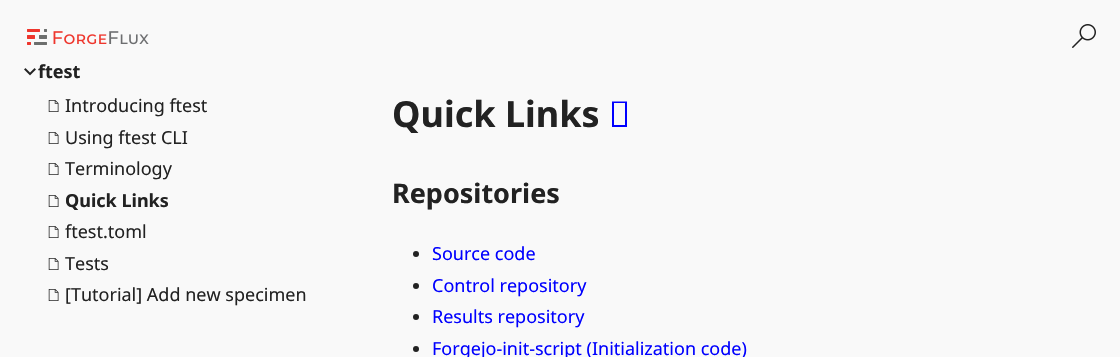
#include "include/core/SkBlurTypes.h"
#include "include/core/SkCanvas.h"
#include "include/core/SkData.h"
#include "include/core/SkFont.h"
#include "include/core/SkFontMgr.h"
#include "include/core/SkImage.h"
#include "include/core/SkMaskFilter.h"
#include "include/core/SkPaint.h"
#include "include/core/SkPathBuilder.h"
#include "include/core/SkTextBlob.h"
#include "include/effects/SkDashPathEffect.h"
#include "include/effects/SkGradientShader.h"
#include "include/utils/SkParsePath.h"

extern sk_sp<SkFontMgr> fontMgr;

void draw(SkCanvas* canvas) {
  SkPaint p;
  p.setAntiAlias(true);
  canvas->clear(SkColorSetRGB(249, 249, 249));
  canvas->drawImageRect(SkImages::DeferredFromEncodedData(SkData::MakeFromFileName("images/1.png")), SkRect::MakeLTRB(27, 29, 149, 45), SkSamplingOptions());
  canvas->drawImageRect(SkImages::DeferredFromEncodedData(SkData::MakeFromFileName("images/2.png")), SkRect::MakeLTRB(24, 68, 36, 76), SkSamplingOptions());
  canvas->drawImageRect(SkImages::DeferredFromEncodedData(SkData::MakeFromFileName("images/3.png")), SkRect::MakeLTRB(48, 100, 59, 112), SkSamplingOptions());
  canvas->drawImageRect(SkImages::DeferredFromEncodedData(SkData::MakeFromFileName("images/3.png")), SkRect::MakeLTRB(48, 132, 59, 144), SkSamplingOptions());
  canvas->drawImageRect(SkImages::DeferredFromEncodedData(SkData::MakeFromFileName("images/3.png")), SkRect::MakeLTRB(48, 163, 59, 175), SkSamplingOptions());
  canvas->drawImageRect(SkImages::DeferredFromEncodedData(SkData::MakeFromFileName("images/3.png")), SkRect::MakeLTRB(48, 195, 59, 207), SkSamplingOptions());
  canvas->drawImageRect(SkImages::DeferredFromEncodedData(SkData::MakeFromFileName("images/3.png")), SkRect::MakeLTRB(48, 226, 59, 238), SkSamplingOptions());
  canvas->drawImageRect(SkImages::DeferredFromEncodedData(SkData::MakeFromFileName("images/3.png")), SkRect::MakeLTRB(48, 258, 59, 270), SkSamplingOptions());
  canvas->drawImageRect(SkImages::DeferredFromEncodedData(SkData::MakeFromFileName("images/3.png")), SkRect::MakeLTRB(48, 289, 59, 301), SkSamplingOptions());
  canvas->drawImageRect(SkImages::DeferredFromEncodedData(SkData::MakeFromFileName("images/4.png")), SkRect::MakeLTRB(1072, 24, 1096, 48), SkSamplingOptions());
  p.setColor(SkColorSetRGB(0, 0, 255));
  canvas->drawPath(SkPathBuilder().moveTo(612, 127).lineTo(612, 101.5f).lineTo(627, 101.5f).lineTo(627, 127).close().moveTo(614, 125).lineTo(625, 125).lineTo(625, 103).lineTo(614, 103).close().detach(), p);
  p.setColor(SkColorSetRGB(34, 34, 34));
  canvas->drawCircle(416, 254, 3, p);
  canvas->drawCircle(416, 286, 3, p);
  canvas->drawCircle(416, 317, 3, p);
  canvas->drawCircle(416, 349, 3, p);
  SkFont font1(fontMgr->matchFamilyStyle("Noto Sans", SkFontStyle::Bold()), 18);
  font1.setSubpixel(true);
  canvas->drawString("ftest", 38, 78, font1, p);
  SkFont font2(fontMgr->matchFamilyStyle("Noto Sans", SkFontStyle::Normal()), 18);
  font2.setSubpixel(true);
  canvas->drawString("Introducing ftest", 65, 112, font2, p);
  canvas->drawString("Using ftest CLI", 65, 144, font2, p);
  canvas->drawString("Terminology", 65, 175, font2, p);
  canvas->drawString("Quick Links", 65, 207, font1, p);
  canvas->drawString("ftest.toml", 65, 238, font2, p);
  canvas->drawString("Tests", 65, 270, font2, p);
  canvas->drawString("[Tutorial] Add new specimen", 65, 301, font2, p);
  SkFont font3(fontMgr->matchFamilyStyle("Noto Sans", SkFontStyle::Bold()), 36);
  font3.setSubpixel(true);
  canvas->drawString("Quick Links", 392, 127, font3, p);
  SkFont font4(fontMgr->matchFamilyStyle("Noto Sans", SkFontStyle::Bold()), 27);
  font4.setSubpixel(true);
  canvas->drawString("Repositories", 392, 203, font4, p);
  p.setColor(SkColorSetRGB(0, 0, 255));
  canvas->drawString("Source code", 432, 260, font2, p);
  canvas->drawString("Control repository", 432, 292, font2, p);
  canvas->drawString("Results repository", 432, 323, font2, p);
  canvas->drawString("Forgejo-init-script (Initialization code)", 432, 355, font2, p);
}
